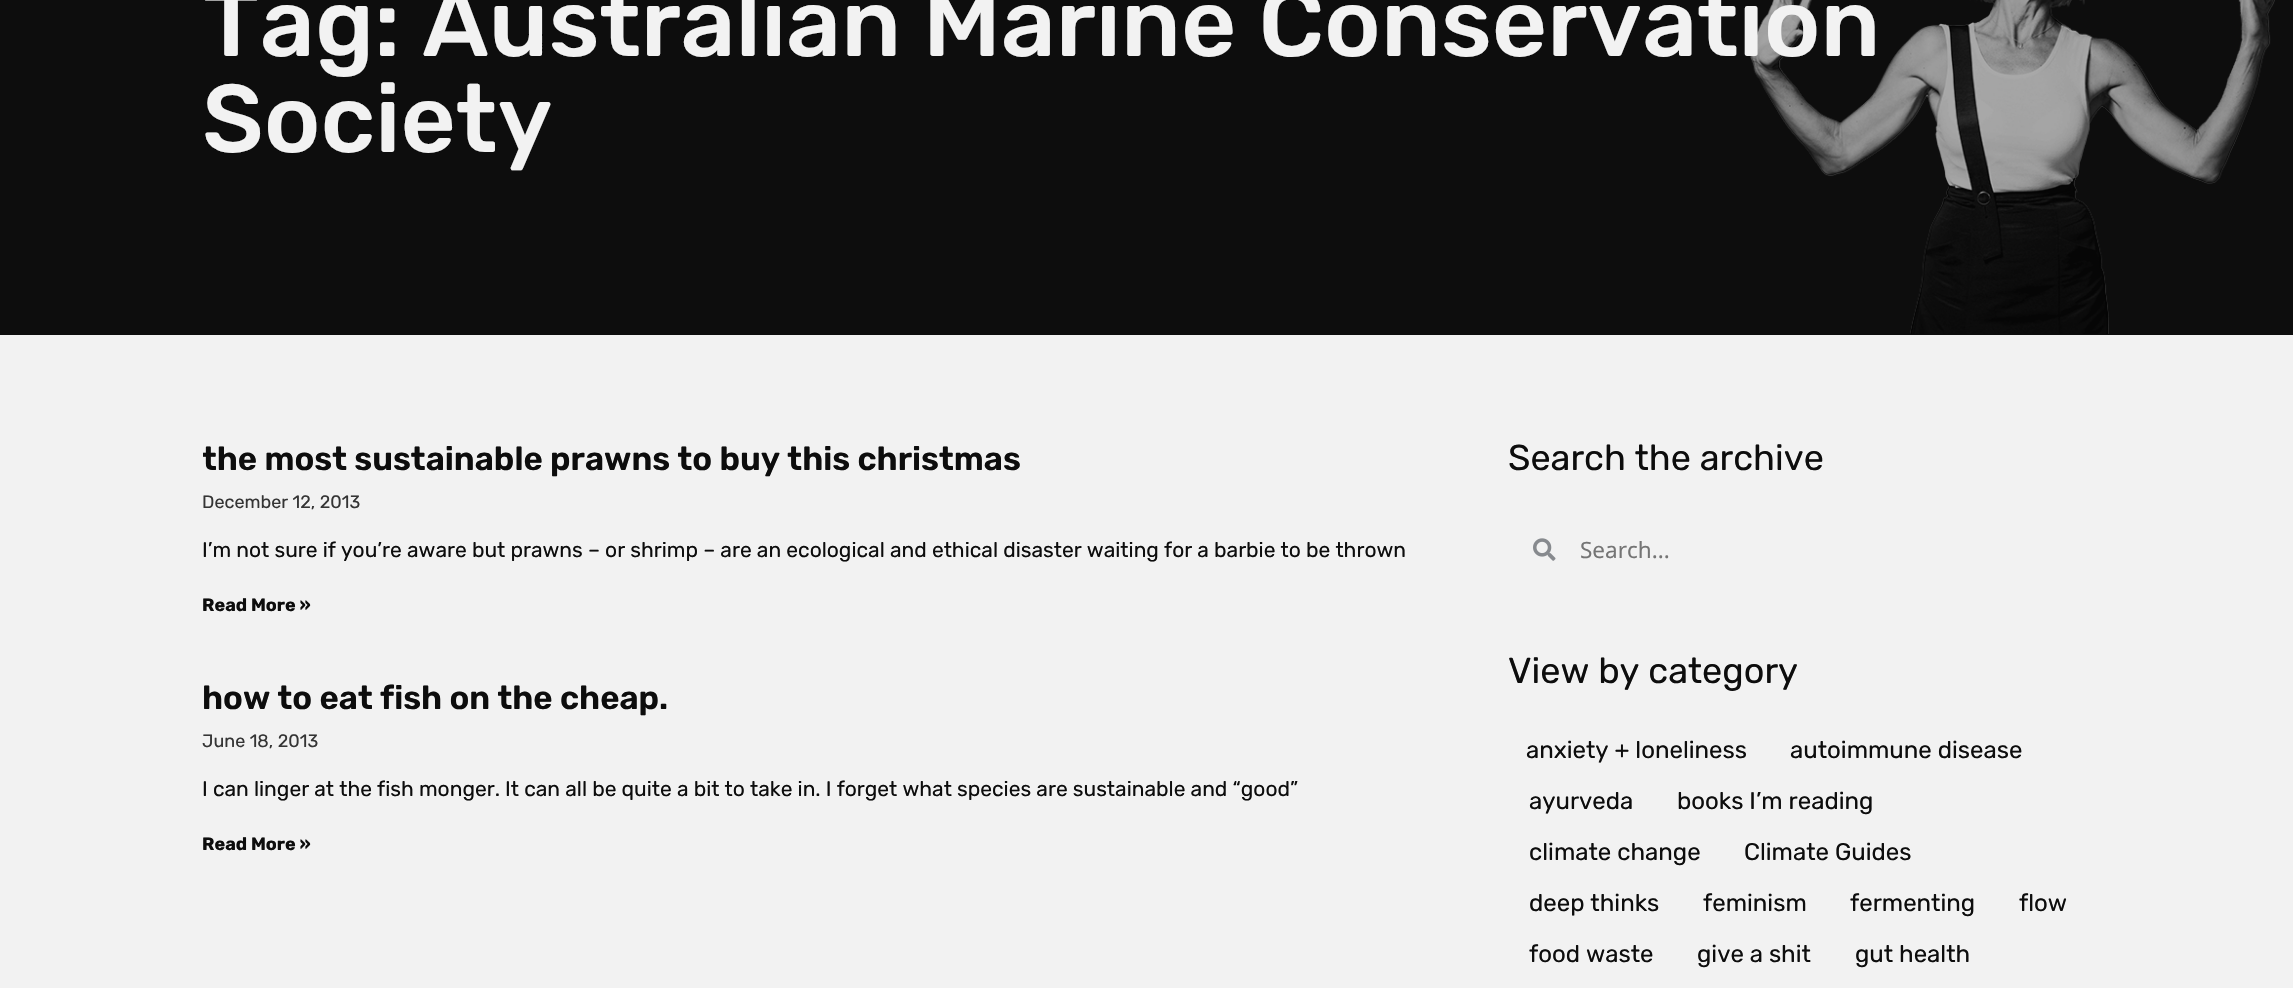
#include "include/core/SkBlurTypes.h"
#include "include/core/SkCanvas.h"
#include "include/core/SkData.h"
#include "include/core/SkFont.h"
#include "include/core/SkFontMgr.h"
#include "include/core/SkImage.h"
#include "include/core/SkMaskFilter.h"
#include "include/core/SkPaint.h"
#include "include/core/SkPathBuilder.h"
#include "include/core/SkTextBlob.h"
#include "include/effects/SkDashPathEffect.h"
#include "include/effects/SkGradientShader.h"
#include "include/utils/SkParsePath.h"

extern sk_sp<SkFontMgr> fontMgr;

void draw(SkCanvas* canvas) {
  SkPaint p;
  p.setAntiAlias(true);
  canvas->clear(SkColorSetRGB(242, 242, 242));
  p.setColor(SkColorSetRGB(13, 13, 13));
  canvas->drawRect(SkRect::MakeLTRB(0, 0, 2293, 335), p);
  canvas->drawImageRect(SkImages::DeferredFromEncodedData(SkData::MakeFromFileName("images/1.png")), SkRect::MakeLTRB(1750, 0, 2275, 334), SkSamplingOptions());
  canvas->drawImageRect(SkImages::DeferredFromEncodedData(SkData::MakeFromFileName("images/2.png")), SkRect::MakeLTRB(1533, 538, 1556, 561), SkSamplingOptions());
  SkFont font1(fontMgr->matchFamilyStyle("Rubik", SkFontStyle(500, SkFontStyle::kNormal_Width, SkFontStyle::kUpright_Slant)), 96);
  font1.setSubpixel(true);
  p.setColor(SkColorSetRGB(242, 242, 242));
  canvas->drawString("Tag: Australian Marine Conservation", 202, 56, font1, p);
  canvas->drawString("Society", 202, 152, font1, p);
  canvas->save();
  canvas->clipRect(SkRect::MakeLTRB(203, 440, 1448, 627));
  SkFont font2(fontMgr->matchFamilyStyle("Rubik", SkFontStyle(600, SkFontStyle::kNormal_Width, SkFontStyle::kUpright_Slant)), 33);
  font2.setSubpixel(true);
  p.setColor(SkColorSetRGB(13, 13, 13));
  canvas->drawString("the most sustainable prawns to buy this christmas", 202, 470, font2, p);
  canvas->restore();
  SkFont font3(fontMgr->matchFamilyStyle("Rubik", SkFontStyle::Normal()), 18);
  font3.setSubpixel(true);
  p.setColor(SkColorSetRGB(53, 53, 53));
  canvas->drawString("December 12, 2013", 202, 508, font3, p);
  SkFont font4(fontMgr->matchFamilyStyle("Rubik", SkFontStyle::Normal()), 21);
  font4.setSubpixel(true);
  p.setColor(SkColorSetRGB(13, 13, 13));
  canvas->drawString("I’m not sure if you’re aware but prawns – or shrimp – are an ecological and ethical disaster waiting for a barbie to be thrown", 202, 557, font4, p);
  SkFont font5(fontMgr->matchFamilyStyle("Rubik", SkFontStyle::Bold()), 18);
  font5.setSubpixel(true);
  canvas->drawString("Read More »", 202, 611, font5, p);
  canvas->drawString("how to eat fish on the cheap.", 202, 709, font2, p);
  p.setColor(SkColorSetRGB(53, 53, 53));
  canvas->drawString("June 18, 2013", 202, 747, font3, p);
  p.setColor(SkColorSetRGB(13, 13, 13));
  canvas->drawString("I can linger at the fish monger. It can all be quite a bit to take in. I forget what species are sustainable and “good”", 202, 796, font4, p);
  canvas->drawString("Read More »", 202, 850, font5, p);
  SkFont font6(fontMgr->matchFamilyStyle("Rubik", SkFontStyle::Normal()), 36);
  font6.setSubpixel(true);
  canvas->drawString("Search the archive", 1508, 470, font6, p);
  SkFont font7(fontMgr->matchFamilyStyle("Noto Sans", SkFontStyle::Normal()), 22.5f);
  font7.setSubpixel(true);
  p.setColor(SkColorSetRGB(117, 117, 117));
  canvas->drawString("Search...", 1580, 558, font7, p);
  p.setColor(SkColorSetRGB(13, 13, 13));
  canvas->drawString("View by category", 1508, 683, font6, p);
  SkFont font8(fontMgr->matchFamilyStyle("Rubik", SkFontStyle::Normal()), 24);
  font8.setSubpixel(true);
  canvas->drawString("anxiety + loneliness", 1526, 758, font8, p);
  canvas->drawString("autoimmune disease", 1790, 758, font8, p);
  canvas->drawString("ayurveda", 1529, 809, font8, p);
  canvas->drawString("books I’m reading", 1677, 809, font8, p);
  canvas->drawString("climate change", 1529, 860, font8, p);
  canvas->drawString("Climate Guides", 1744, 860, font8, p);
  canvas->drawString("deep thinks", 1529, 911, font8, p);
  canvas->drawString("feminism", 1703, 911, font8, p);
  canvas->drawString("fermenting", 1850, 911, font8, p);
  canvas->drawString("flow", 2019, 911, font8, p);
  canvas->drawString("food waste", 1529, 962, font8, p);
  canvas->drawString("give a shit", 1697, 962, font8, p);
  canvas->drawString("gut health", 1855, 962, font8, p);
}
